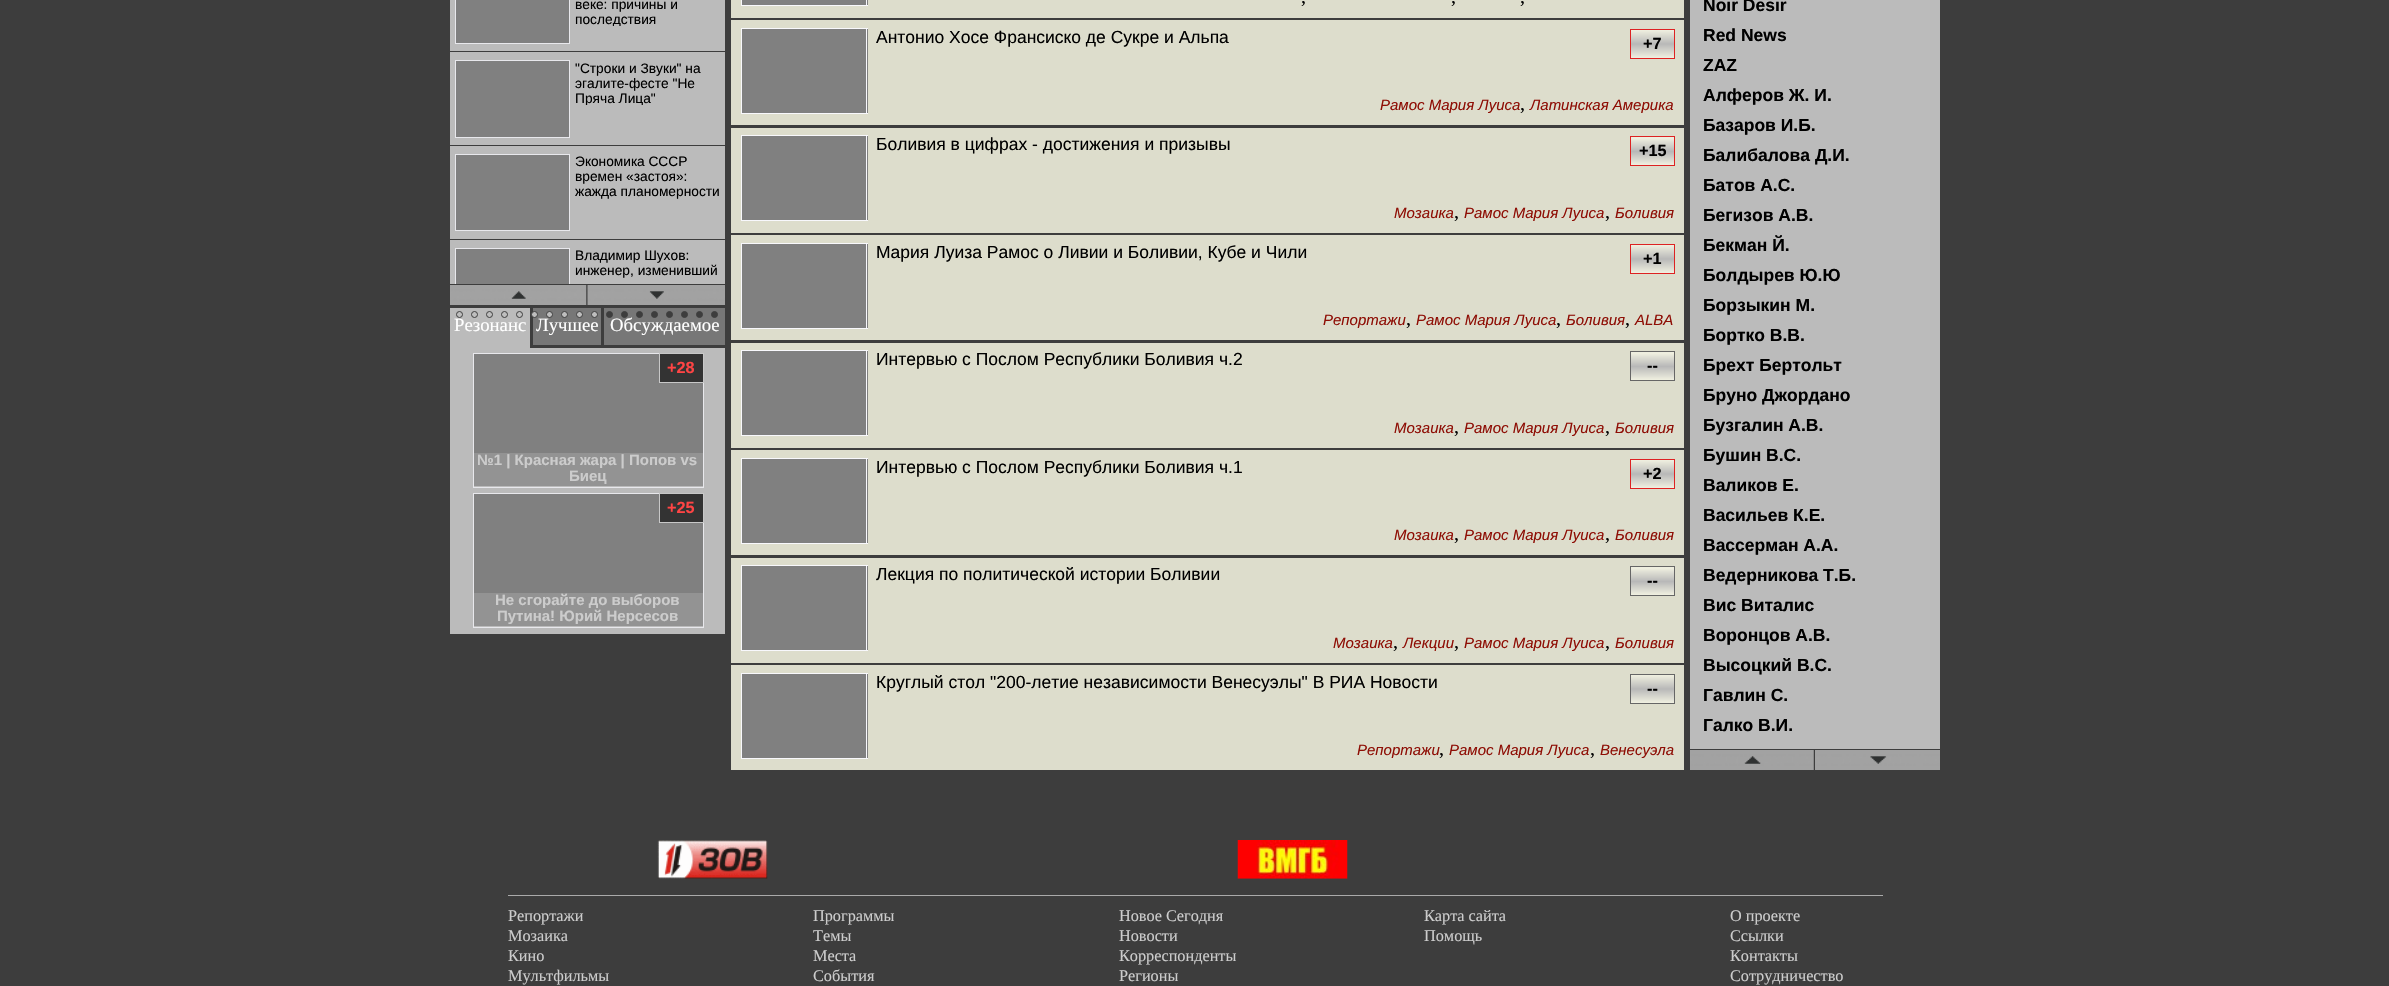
#include "include/core/SkBlurTypes.h"
#include "include/core/SkCanvas.h"
#include "include/core/SkData.h"
#include "include/core/SkFont.h"
#include "include/core/SkFontMgr.h"
#include "include/core/SkImage.h"
#include "include/core/SkMaskFilter.h"
#include "include/core/SkPaint.h"
#include "include/core/SkPathBuilder.h"
#include "include/core/SkTextBlob.h"
#include "include/effects/SkDashPathEffect.h"
#include "include/effects/SkGradientShader.h"
#include "include/utils/SkParsePath.h"

extern sk_sp<SkFontMgr> fontMgr;

void draw(SkCanvas* canvas) {
  SkPaint p;
  p.setAntiAlias(true);
  canvas->clear(SkColorSetRGB(61, 61, 61));
  p.setColor(SkColorSetRGB(187, 187, 187));
  canvas->drawRect(SkRect::MakeLTRB(450, 0, 725, 284), p);
  p.setColor(SkColorSetRGB(128, 128, 128));
  canvas->drawRect(SkRect::MakeLTRB(455.5f, -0.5f, 569.5f, 43.5f), p);
  p.setStyle(SkPaint::kStroke_Style);
  p.setStrokeWidth(1);
  p.setColor(SkColorSetRGB(232, 232, 236));
  canvas->drawRect(SkRect::MakeLTRB(455.5f, -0.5f, 569.5f, 43.5f), p);
  p.setStyle(SkPaint::kFill_Style);
  p.setColor(SkColorSetRGB(61, 61, 61));
  canvas->drawRect(SkRect::MakeLTRB(450, 51, 725, 52), p);
  p.setColor(SkColorSetRGB(128, 128, 128));
  canvas->drawRect(SkRect::MakeLTRB(455.5f, 60.5f, 569.5f, 137.5f), p);
  p.setStyle(SkPaint::kStroke_Style);
  p.setColor(SkColorSetRGB(232, 232, 236));
  canvas->drawRect(SkRect::MakeLTRB(455.5f, 60.5f, 569.5f, 137.5f), p);
  p.setStyle(SkPaint::kFill_Style);
  p.setColor(SkColorSetRGB(61, 61, 61));
  canvas->drawRect(SkRect::MakeLTRB(450, 145, 725, 146), p);
  p.setColor(SkColorSetRGB(128, 128, 128));
  canvas->drawRect(SkRect::MakeLTRB(455.5f, 154.5f, 569.5f, 230.5f), p);
  p.setStyle(SkPaint::kStroke_Style);
  p.setColor(SkColorSetRGB(232, 232, 236));
  canvas->drawRect(SkRect::MakeLTRB(455.5f, 154.5f, 569.5f, 230.5f), p);
  p.setStyle(SkPaint::kFill_Style);
  p.setColor(SkColorSetRGB(61, 61, 61));
  canvas->drawRect(SkRect::MakeLTRB(450, 239, 725, 240), p);
  p.setColor(SkColorSetRGB(128, 128, 128));
  canvas->drawRect(SkRect::MakeLTRB(456, 249, 569, 284), p);
  canvas->save();
  canvas->clipRect(SkRect::MakeLTRB(450, 0, 725, 284));
  p.setStyle(SkPaint::kStroke_Style);
  p.setColor(SkColorSetRGB(232, 232, 236));
  canvas->drawRect(SkRect::MakeLTRB(455.5f, 248.5f, 569.5f, 324.5f), p);
  canvas->restore();
  canvas->drawImageRect(SkImages::DeferredFromEncodedData(SkData::MakeFromFileName("images/1.png")), SkRect::MakeLTRB(450, 285, 587, 305), SkSamplingOptions());
  canvas->drawImageRect(SkImages::DeferredFromEncodedData(SkData::MakeFromFileName("images/2.png")), SkRect::MakeLTRB(587, 285, 725, 305), SkSamplingOptions());
  p.setStyle(SkPaint::kFill_Style);
  p.setColor(SkColorSetRGB(187, 187, 187));
  canvas->drawRect(SkRect::MakeLTRB(450, 308, 530, 348), p);
  p.setColor(SkColorSetRGB(190, 190, 190));
  canvas->drawCircle(459.5f, 314.5f, 3, p);
  p.setStyle(SkPaint::kStroke_Style);
  p.setColor(SkColorSetRGB(61, 61, 61));
  canvas->drawCircle(459.5f, 314.5f, 3, p);
  p.setStyle(SkPaint::kFill_Style);
  p.setColor(SkColorSetRGB(190, 190, 190));
  canvas->drawCircle(474.5f, 314.5f, 3, p);
  p.setStyle(SkPaint::kStroke_Style);
  p.setColor(SkColorSetRGB(61, 61, 61));
  canvas->drawCircle(474.5f, 314.5f, 3, p);
  p.setStyle(SkPaint::kFill_Style);
  p.setColor(SkColorSetRGB(190, 190, 190));
  canvas->drawCircle(489.5f, 314.5f, 3, p);
  p.setStyle(SkPaint::kStroke_Style);
  p.setColor(SkColorSetRGB(61, 61, 61));
  canvas->drawCircle(489.5f, 314.5f, 3, p);
  p.setStyle(SkPaint::kFill_Style);
  p.setColor(SkColorSetRGB(190, 190, 190));
  canvas->drawCircle(504.5f, 314.5f, 3, p);
  p.setStyle(SkPaint::kStroke_Style);
  p.setColor(SkColorSetRGB(61, 61, 61));
  canvas->drawCircle(504.5f, 314.5f, 3, p);
  p.setStyle(SkPaint::kFill_Style);
  p.setColor(SkColorSetRGB(190, 190, 190));
  canvas->drawCircle(519.5f, 314.5f, 3, p);
  p.setStyle(SkPaint::kStroke_Style);
  p.setColor(SkColorSetRGB(61, 61, 61));
  canvas->drawCircle(519.5f, 314.5f, 3, p);
  p.setStyle(SkPaint::kFill_Style);
  p.setColor(SkColorSetRGB(119, 119, 119));
  canvas->drawRect(SkRect::MakeLTRB(533, 308, 601, 345), p);
  p.setColor(SkColorSetRGB(190, 190, 190));
  canvas->drawCircle(534.5f, 314.5f, 3, p);
  p.setStyle(SkPaint::kStroke_Style);
  p.setColor(SkColorSetRGB(61, 61, 61));
  canvas->drawCircle(534.5f, 314.5f, 3, p);
  p.setStyle(SkPaint::kFill_Style);
  p.setColor(SkColorSetRGB(190, 190, 190));
  canvas->drawCircle(549.5f, 314.5f, 3, p);
  p.setStyle(SkPaint::kStroke_Style);
  p.setColor(SkColorSetRGB(61, 61, 61));
  canvas->drawCircle(549.5f, 314.5f, 3, p);
  p.setStyle(SkPaint::kFill_Style);
  p.setColor(SkColorSetRGB(190, 190, 190));
  canvas->drawCircle(564.5f, 314.5f, 3, p);
  p.setStyle(SkPaint::kStroke_Style);
  p.setColor(SkColorSetRGB(61, 61, 61));
  canvas->drawCircle(564.5f, 314.5f, 3, p);
  p.setStyle(SkPaint::kFill_Style);
  p.setColor(SkColorSetRGB(190, 190, 190));
  canvas->drawCircle(579.5f, 314.5f, 3, p);
  p.setStyle(SkPaint::kStroke_Style);
  p.setColor(SkColorSetRGB(61, 61, 61));
  canvas->drawCircle(579.5f, 314.5f, 3, p);
  p.setStyle(SkPaint::kFill_Style);
  p.setColor(SkColorSetRGB(190, 190, 190));
  canvas->drawCircle(594.5f, 314.5f, 3, p);
  p.setStyle(SkPaint::kStroke_Style);
  p.setColor(SkColorSetRGB(61, 61, 61));
  canvas->drawCircle(594.5f, 314.5f, 3, p);
  p.setStyle(SkPaint::kFill_Style);
  p.setColor(SkColorSetRGB(119, 119, 119));
  canvas->drawRect(SkRect::MakeLTRB(604, 308, 725, 345), p);
  p.setColor(SkColorSetRGB(187, 187, 187));
  canvas->drawRect(SkRect::MakeLTRB(450, 348, 725, 634), p);
  p.setStyle(SkPaint::kStroke_Style);
  p.setColor(SkColorSetRGB(232, 232, 236));
  canvas->drawRect(SkRect::MakeLTRB(473.5f, 353.5f, 703.5f, 487.5f), p);
  p.setStyle(SkPaint::kFill_Style);
  p.setColor(SkColorSetRGB(128, 128, 128));
  canvas->drawRect(SkRect::MakeLTRB(474, 354, 703, 453), p);
  p.setColor(SkColorSetRGB(51, 51, 51));
  canvas->drawRect(SkRect::MakeLTRB(659.5f, 353.5f, 703.5f, 382.5f), p);
  p.setStyle(SkPaint::kStroke_Style);
  p.setColor(SkColorSetRGB(200, 200, 200));
  canvas->drawRect(SkRect::MakeLTRB(659.5f, 353.5f, 703.5f, 382.5f), p);
  p.setStyle(SkPaint::kFill_Style);
  p.setColor(SkColorSetRGB(147, 147, 147));
  canvas->drawRect(SkRect::MakeLTRB(474, 453, 703, 486), p);
  p.setStyle(SkPaint::kStroke_Style);
  p.setColor(SkColorSetRGB(232, 232, 236));
  canvas->drawRect(SkRect::MakeLTRB(473.5f, 493.5f, 703.5f, 627.5f), p);
  p.setStyle(SkPaint::kFill_Style);
  p.setColor(SkColorSetRGB(128, 128, 128));
  canvas->drawRect(SkRect::MakeLTRB(474, 494, 703, 593), p);
  p.setColor(SkColorSetRGB(51, 51, 51));
  canvas->drawRect(SkRect::MakeLTRB(659.5f, 493.5f, 703.5f, 522.5f), p);
  p.setStyle(SkPaint::kStroke_Style);
  p.setColor(SkColorSetRGB(200, 200, 200));
  canvas->drawRect(SkRect::MakeLTRB(659.5f, 493.5f, 703.5f, 522.5f), p);
  p.setStyle(SkPaint::kFill_Style);
  p.setColor(SkColorSetRGB(147, 147, 147));
  canvas->drawRect(SkRect::MakeLTRB(474, 593, 703, 626), p);
  p.setColor(SkColorSetRGB(221, 221, 204));
  canvas->drawRect(SkRect::MakeLTRB(731, 0, 1684, 18), p);
  p.setColor(SkColorSetRGB(128, 128, 128));
  canvas->drawRect(SkRect::MakeLTRB(741, 0, 868, 5), p);
  p.setColor(SkColorSetRGB(248, 248, 252));
  canvas->drawRect(SkRect::MakeLTRB(866, 0, 867, 6), p);
  canvas->drawRect(SkRect::MakeLTRB(741, 5, 868, 6), p);
  canvas->drawRect(SkRect::MakeLTRB(741, 0, 742, 6), p);
  p.setColor(SkColorSetRGB(221, 221, 204));
  canvas->drawRect(SkRect::MakeLTRB(731, 20, 1684, 125), p);
  p.setColor(SkColorSetRGB(128, 128, 128));
  canvas->drawRect(SkRect::MakeLTRB(742, 29, 868, 113), p);
  p.setColor(SkColorSetRGB(248, 248, 252));
  canvas->drawRect(SkRect::MakeLTRB(741, 28, 868, 29), p);
  canvas->drawRect(SkRect::MakeLTRB(866, 28, 867, 114), p);
  canvas->drawRect(SkRect::MakeLTRB(741, 113, 868, 114), p);
  canvas->drawRect(SkRect::MakeLTRB(741, 28, 742, 114), p);
  {
    const SkColor colors[] = {SkColorSetRGB(240, 240, 224), SkColorSetRGB(184, 184, 184), SkColorSetRGB(240, 240, 224)};
    const float stops[] = {0, 0.5f, 1};
    const SkPoint ends[] = {{1653, 30}, {1653, 58}};
    p.setShader(SkGradientShader::MakeLinear(ends, colors, stops, 3, SkTileMode::kClamp));
    p.setAlpha(255);
  }
  canvas->drawRect(SkRect::MakeLTRB(1631, 30, 1674, 58), p);
  p.setStyle(SkPaint::kStroke_Style);
  p.setShader(nullptr);
  p.setColor(SkColorSetRGB(221, 34, 34));
  canvas->drawRect(SkRect::MakeLTRB(1630.5f, 29.5f, 1674.5f, 58.5f), p);
  p.setStyle(SkPaint::kFill_Style);
  p.setColor(SkColorSetRGB(221, 221, 204));
  canvas->drawRect(SkRect::MakeLTRB(731, 128, 1684, 233), p);
  p.setColor(SkColorSetRGB(128, 128, 128));
  canvas->drawRect(SkRect::MakeLTRB(742, 136, 868, 220), p);
  p.setColor(SkColorSetRGB(248, 248, 252));
  canvas->drawRect(SkRect::MakeLTRB(741, 135, 868, 136), p);
  canvas->drawRect(SkRect::MakeLTRB(866, 135, 867, 221), p);
  canvas->drawRect(SkRect::MakeLTRB(741, 220, 868, 221), p);
  canvas->drawRect(SkRect::MakeLTRB(741, 135, 742, 221), p);
  {
    const SkColor colors[] = {SkColorSetRGB(240, 240, 224), SkColorSetRGB(184, 184, 184), SkColorSetRGB(240, 240, 224)};
    const float stops[] = {0, 0.5f, 1};
    const SkPoint ends[] = {{1653, 110}, {1653, 138}};
    p.setShader(SkGradientShader::MakeLinear(ends, colors, stops, 3, SkTileMode::kClamp));
    p.setAlpha(255);
  }
  canvas->drawRect(SkRect::MakeLTRB(1630, 137, 1675, 138), p);
  {
    const SkColor colors[] = {SkColorSetRGB(240, 240, 224), SkColorSetRGB(184, 184, 184), SkColorSetRGB(240, 240, 224)};
    const float stops[] = {0, 0.5f, 1};
    const SkPoint ends[] = {{1653, 138}, {1653, 165}};
    p.setShader(SkGradientShader::MakeLinear(ends, colors, stops, 3, SkTileMode::kClamp));
    p.setAlpha(255);
  }
  canvas->drawRect(SkRect::MakeLTRB(1631, 138, 1674, 165), p);
  p.setStyle(SkPaint::kStroke_Style);
  p.setShader(nullptr);
  p.setColor(SkColorSetRGB(221, 34, 34));
  canvas->drawRect(SkRect::MakeLTRB(1630.5f, 136.5f, 1674.5f, 165.5f), p);
  p.setStyle(SkPaint::kFill_Style);
  p.setColor(SkColorSetRGB(221, 221, 204));
  canvas->drawRect(SkRect::MakeLTRB(731, 235, 1684, 340), p);
  p.setColor(SkColorSetRGB(128, 128, 128));
  canvas->drawRect(SkRect::MakeLTRB(742, 244, 868, 328), p);
  p.setColor(SkColorSetRGB(248, 248, 252));
  canvas->drawRect(SkRect::MakeLTRB(741, 243, 868, 244), p);
  canvas->drawRect(SkRect::MakeLTRB(866, 243, 867, 329), p);
  canvas->drawRect(SkRect::MakeLTRB(741, 328, 868, 329), p);
  canvas->drawRect(SkRect::MakeLTRB(741, 243, 742, 329), p);
  {
    const SkColor colors[] = {SkColorSetRGB(240, 240, 224), SkColorSetRGB(184, 184, 184), SkColorSetRGB(240, 240, 224)};
    const float stops[] = {0, 0.5f, 1};
    const SkPoint ends[] = {{1653, 245}, {1653, 273}};
    p.setShader(SkGradientShader::MakeLinear(ends, colors, stops, 3, SkTileMode::kClamp));
    p.setAlpha(255);
  }
  canvas->drawRect(SkRect::MakeLTRB(1631, 245, 1674, 273), p);
  p.setStyle(SkPaint::kStroke_Style);
  p.setShader(nullptr);
  p.setColor(SkColorSetRGB(221, 34, 34));
  canvas->drawRect(SkRect::MakeLTRB(1630.5f, 244.5f, 1674.5f, 273.5f), p);
  p.setStyle(SkPaint::kFill_Style);
  p.setColor(SkColorSetRGB(221, 221, 204));
  canvas->drawRect(SkRect::MakeLTRB(731, 343, 1684, 448), p);
  p.setColor(SkColorSetRGB(128, 128, 128));
  canvas->drawRect(SkRect::MakeLTRB(742, 351, 868, 435), p);
  p.setColor(SkColorSetRGB(248, 248, 252));
  canvas->drawRect(SkRect::MakeLTRB(741, 350, 868, 351), p);
  canvas->drawRect(SkRect::MakeLTRB(866, 350, 867, 436), p);
  canvas->drawRect(SkRect::MakeLTRB(741, 435, 868, 436), p);
  canvas->drawRect(SkRect::MakeLTRB(741, 350, 742, 436), p);
  {
    const SkColor colors[] = {SkColorSetRGB(240, 240, 224), SkColorSetRGB(184, 184, 184), SkColorSetRGB(240, 240, 224)};
    const float stops[] = {0, 0.5f, 1};
    const SkPoint ends[] = {{1653, 325}, {1653, 353}};
    p.setShader(SkGradientShader::MakeLinear(ends, colors, stops, 3, SkTileMode::kClamp));
    p.setAlpha(255);
  }
  canvas->drawRect(SkRect::MakeLTRB(1630, 352, 1675, 353), p);
  {
    const SkColor colors[] = {SkColorSetRGB(240, 240, 224), SkColorSetRGB(184, 184, 184), SkColorSetRGB(240, 240, 224)};
    const float stops[] = {0, 0.5f, 1};
    const SkPoint ends[] = {{1653, 353}, {1653, 380}};
    p.setShader(SkGradientShader::MakeLinear(ends, colors, stops, 3, SkTileMode::kClamp));
    p.setAlpha(255);
  }
  canvas->drawRect(SkRect::MakeLTRB(1631, 353, 1674, 380), p);
  p.setStyle(SkPaint::kStroke_Style);
  p.setShader(nullptr);
  p.setColor(SkColorSetRGB(102, 102, 102));
  canvas->drawRect(SkRect::MakeLTRB(1630.5f, 351.5f, 1674.5f, 380.5f), p);
  p.setStyle(SkPaint::kFill_Style);
  p.setColor(SkColorSetRGB(221, 221, 204));
  canvas->drawRect(SkRect::MakeLTRB(731, 450, 1684, 555), p);
  p.setColor(SkColorSetRGB(128, 128, 128));
  canvas->drawRect(SkRect::MakeLTRB(742, 459, 868, 543), p);
  p.setColor(SkColorSetRGB(248, 248, 252));
  canvas->drawRect(SkRect::MakeLTRB(741, 458, 868, 459), p);
  canvas->drawRect(SkRect::MakeLTRB(866, 458, 867, 544), p);
  canvas->drawRect(SkRect::MakeLTRB(741, 543, 868, 544), p);
  canvas->drawRect(SkRect::MakeLTRB(741, 458, 742, 544), p);
  {
    const SkColor colors[] = {SkColorSetRGB(240, 240, 224), SkColorSetRGB(184, 184, 184), SkColorSetRGB(240, 240, 224)};
    const float stops[] = {0, 0.5f, 1};
    const SkPoint ends[] = {{1653, 460}, {1653, 488}};
    p.setShader(SkGradientShader::MakeLinear(ends, colors, stops, 3, SkTileMode::kClamp));
    p.setAlpha(255);
  }
  canvas->drawRect(SkRect::MakeLTRB(1631, 460, 1674, 488), p);
  p.setStyle(SkPaint::kStroke_Style);
  p.setShader(nullptr);
  p.setColor(SkColorSetRGB(221, 34, 34));
  canvas->drawRect(SkRect::MakeLTRB(1630.5f, 459.5f, 1674.5f, 488.5f), p);
  p.setStyle(SkPaint::kFill_Style);
  p.setColor(SkColorSetRGB(221, 221, 204));
  canvas->drawRect(SkRect::MakeLTRB(731, 558, 1684, 663), p);
  p.setColor(SkColorSetRGB(128, 128, 128));
  canvas->drawRect(SkRect::MakeLTRB(742, 566, 868, 650), p);
  p.setColor(SkColorSetRGB(248, 248, 252));
  canvas->drawRect(SkRect::MakeLTRB(741, 565, 868, 566), p);
  canvas->drawRect(SkRect::MakeLTRB(866, 565, 867, 651), p);
  canvas->drawRect(SkRect::MakeLTRB(741, 650, 868, 651), p);
  canvas->drawRect(SkRect::MakeLTRB(741, 565, 742, 651), p);
  {
    const SkColor colors[] = {SkColorSetRGB(240, 240, 224), SkColorSetRGB(184, 184, 184), SkColorSetRGB(240, 240, 224)};
    const float stops[] = {0, 0.5f, 1};
    const SkPoint ends[] = {{1653, 540}, {1653, 568}};
    p.setShader(SkGradientShader::MakeLinear(ends, colors, stops, 3, SkTileMode::kClamp));
    p.setAlpha(255);
  }
  canvas->drawRect(SkRect::MakeLTRB(1630, 567, 1675, 568), p);
  {
    const SkColor colors[] = {SkColorSetRGB(240, 240, 224), SkColorSetRGB(184, 184, 184), SkColorSetRGB(240, 240, 224)};
    const float stops[] = {0, 0.5f, 1};
    const SkPoint ends[] = {{1653, 568}, {1653, 595}};
    p.setShader(SkGradientShader::MakeLinear(ends, colors, stops, 3, SkTileMode::kClamp));
    p.setAlpha(255);
  }
  canvas->drawRect(SkRect::MakeLTRB(1631, 568, 1674, 595), p);
  p.setStyle(SkPaint::kStroke_Style);
  p.setShader(nullptr);
  p.setColor(SkColorSetRGB(102, 102, 102));
  canvas->drawRect(SkRect::MakeLTRB(1630.5f, 566.5f, 1674.5f, 595.5f), p);
  p.setStyle(SkPaint::kFill_Style);
  p.setColor(SkColorSetRGB(221, 221, 204));
  canvas->drawRect(SkRect::MakeLTRB(731, 665, 1684, 770), p);
  p.setColor(SkColorSetRGB(128, 128, 128));
  canvas->drawRect(SkRect::MakeLTRB(742, 674, 868, 758), p);
  p.setColor(SkColorSetRGB(248, 248, 252));
  canvas->drawRect(SkRect::MakeLTRB(741, 673, 868, 674), p);
  canvas->drawRect(SkRect::MakeLTRB(866, 673, 867, 759), p);
  canvas->drawRect(SkRect::MakeLTRB(741, 758, 868, 759), p);
  canvas->drawRect(SkRect::MakeLTRB(741, 673, 742, 759), p);
  {
    const SkColor colors[] = {SkColorSetRGB(240, 240, 224), SkColorSetRGB(184, 184, 184), SkColorSetRGB(240, 240, 224)};
    const float stops[] = {0, 0.5f, 1};
    const SkPoint ends[] = {{1653, 675}, {1653, 703}};
    p.setShader(SkGradientShader::MakeLinear(ends, colors, stops, 3, SkTileMode::kClamp));
    p.setAlpha(255);
  }
  canvas->drawRect(SkRect::MakeLTRB(1631, 675, 1674, 703), p);
  p.setStyle(SkPaint::kStroke_Style);
  p.setShader(nullptr);
  p.setColor(SkColorSetRGB(102, 102, 102));
  canvas->drawRect(SkRect::MakeLTRB(1630.5f, 674.5f, 1674.5f, 703.5f), p);
  p.setStyle(SkPaint::kFill_Style);
  p.setColor(SkColorSetRGB(187, 187, 187));
  canvas->drawRect(SkRect::MakeLTRB(1690, 0, 1940, 749), p);
  canvas->drawImageRect(SkImages::DeferredFromEncodedData(SkData::MakeFromFileName("images/3.png")), SkRect::MakeLTRB(1690, 750, 1814, 770), SkSamplingOptions());
  canvas->drawImageRect(SkImages::DeferredFromEncodedData(SkData::MakeFromFileName("images/4.png")), SkRect::MakeLTRB(1815, 750, 1940, 770), SkSamplingOptions());
  canvas->drawImageRect(SkImages::DeferredFromEncodedData(SkData::MakeFromFileName("images/5.png")), SkRect::MakeLTRB(657, 840, 768, 879), SkSamplingOptions());
  canvas->drawImageRect(SkImages::DeferredFromEncodedData(SkData::MakeFromFileName("images/6.png")), SkRect::MakeLTRB(1237, 840, 1348, 879), SkSamplingOptions());
  p.setColor(SkColorSetRGB(170, 170, 170));
  canvas->drawRect(SkRect::MakeLTRB(508, 895, 1883, 896), p);
  SkFont font1(fontMgr->matchFamilyStyle("Liberation Sans", SkFontStyle::Normal()), 13.75f);
  font1.setSubpixel(true);
  p.setColor(SK_ColorBLACK);
  canvas->drawString("веке: причины и", 575, 9, font1, p);
  canvas->save();
  canvas->clipRect(SkRect::MakeLTRB(575, 0, 720, 26));
  canvas->drawString("последствия", 575, 24, font1, p);
  canvas->restore();
  canvas->drawString("\"Строки и Звуки\" на", 575, 73, font1, p);
  canvas->drawString("эгалите-фесте \"Не", 575, 88, font1, p);
  canvas->save();
  canvas->clipRect(SkRect::MakeLTRB(575, 60, 720, 105));
  canvas->drawString("Пряча Лица\"", 575, 103, font1, p);
  canvas->restore();
  canvas->drawString("Экономика СССР", 575, 166, font1, p);
  canvas->drawString("времен «застоя»:", 575, 181, font1, p);
  canvas->drawString("жажда планомерности", 575, 196, font1, p);
  canvas->drawString("Владимир Шухов:", 575, 260, font1, p);
  canvas->drawString("инженер, изменивший", 575, 275, font1, p);
  SkFont font2(fontMgr->matchFamilyStyle("Liberation Serif", SkFontStyle::Normal()), 18.75f);
  font2.setSubpixel(true);
  p.setColor(SK_ColorWHITE);
  canvas->drawString("Резонанс", 454, 331, font2, p);
  canvas->drawString("Лучшее", 536, 331, font2, p);
  canvas->drawString("Обсуждаемое", 610, 331, font2, p);
  p.setColor(SkColorSetRGB(61, 61, 61));
  canvas->drawCircle(714.5f, 314.5f, 3, p);
  p.setStyle(SkPaint::kStroke_Style);
  canvas->drawCircle(714.5f, 314.5f, 3, p);
  p.setStyle(SkPaint::kFill_Style);
  canvas->drawCircle(699.5f, 314.5f, 3, p);
  p.setStyle(SkPaint::kStroke_Style);
  canvas->drawCircle(699.5f, 314.5f, 3, p);
  p.setStyle(SkPaint::kFill_Style);
  canvas->drawCircle(684.5f, 314.5f, 3, p);
  p.setStyle(SkPaint::kStroke_Style);
  canvas->drawCircle(684.5f, 314.5f, 3, p);
  p.setStyle(SkPaint::kFill_Style);
  canvas->drawCircle(669.5f, 314.5f, 3, p);
  p.setStyle(SkPaint::kStroke_Style);
  canvas->drawCircle(669.5f, 314.5f, 3, p);
  p.setStyle(SkPaint::kFill_Style);
  canvas->drawCircle(654.5f, 314.5f, 3, p);
  p.setStyle(SkPaint::kStroke_Style);
  canvas->drawCircle(654.5f, 314.5f, 3, p);
  p.setStyle(SkPaint::kFill_Style);
  canvas->drawCircle(639.5f, 314.5f, 3, p);
  p.setStyle(SkPaint::kStroke_Style);
  canvas->drawCircle(639.5f, 314.5f, 3, p);
  p.setStyle(SkPaint::kFill_Style);
  canvas->drawCircle(624.5f, 314.5f, 3, p);
  p.setStyle(SkPaint::kStroke_Style);
  canvas->drawCircle(624.5f, 314.5f, 3, p);
  p.setStyle(SkPaint::kFill_Style);
  canvas->drawCircle(609.5f, 314.5f, 3, p);
  p.setStyle(SkPaint::kStroke_Style);
  canvas->drawCircle(609.5f, 314.5f, 3, p);
  SkFont font3(fontMgr->matchFamilyStyle("Liberation Sans", SkFontStyle::Bold()), 16.25f);
  font3.setSubpixel(true);
  p.setStyle(SkPaint::kFill_Style);
  p.setColor(SkColorSetRGB(255, 68, 68));
  canvas->drawString("+28", 667, 373, font3, p);
  SkFont font4(fontMgr->matchFamilyStyle("Liberation Sans", SkFontStyle::Bold()), 15);
  font4.setSubpixel(true);
  p.setColor(SkColorSetRGB(204, 204, 204));
  canvas->drawString("№1 | Красная жара | Попов vs", 477, 465, font4, p);
  canvas->drawString("Биец", 569, 481, font4, p);
  p.setColor(SkColorSetRGB(255, 68, 68));
  canvas->drawString("+25", 667, 513, font3, p);
  p.setColor(SkColorSetRGB(204, 204, 204));
  canvas->drawString("Не сгорайте до выборов", 495, 605, font4, p);
  canvas->drawString("Путина! Юрий Нерсесов", 497, 621, font4, p);
  SkFont font5(fontMgr->matchFamilyStyle("Liberation Serif", SkFontStyle::Normal()), 20);
  font5.setSubpixel(true);
  p.setColor(SK_ColorBLACK);
  canvas->drawString(",", 1301, 3, font5, p);
  canvas->drawString(",", 1451, 3, font5, p);
  canvas->drawString(",", 1520, 3, font5, p);
  SkFont font6(fontMgr->matchFamilyStyle("Liberation Sans", SkFontStyle::Normal()), 17.5f);
  font6.setSubpixel(true);
  canvas->drawString("Антонио Хосе Франсиско де Сукре и Альпа", 876, 43, font6, p);
  canvas->drawString("+7", 1643, 49, font3, p);
  SkFont font7(fontMgr->matchFamilyStyle("Liberation Sans", SkFontStyle::Italic()), 15);
  font7.setSubpixel(true);
  p.setColor(SkColorSetRGB(142, 14, 5));
  canvas->drawString("Рамос Мария Луиса", 1380, 110, font7, p);
  p.setColor(SK_ColorBLACK);
  canvas->drawString(",", 1520, 110, font5, p);
  p.setColor(SkColorSetRGB(142, 14, 5));
  canvas->drawString("Латинская Америка", 1530, 110, font7, p);
  p.setColor(SK_ColorBLACK);
  canvas->drawString("Боливия в цифрах - достижения и призывы", 876, 150, font6, p);
  canvas->drawString("+15", 1639, 156, font3, p);
  p.setColor(SkColorSetRGB(142, 14, 5));
  canvas->drawString("Мозаика", 1394, 218, font7, p);
  p.setColor(SK_ColorBLACK);
  canvas->drawString(",", 1454, 218, font5, p);
  p.setColor(SkColorSetRGB(142, 14, 5));
  canvas->drawString("Рамос Мария Луиса", 1464, 218, font7, p);
  p.setColor(SK_ColorBLACK);
  canvas->drawString(",", 1605, 218, font5, p);
  p.setColor(SkColorSetRGB(142, 14, 5));
  canvas->drawString("Боливия", 1615, 218, font7, p);
  p.setColor(SK_ColorBLACK);
  canvas->drawString("Мария Луиза Рамос о Ливии и Боливии, Кубе и Чили", 876, 258, font6, p);
  canvas->drawString("+1", 1643, 264, font3, p);
  p.setColor(SkColorSetRGB(142, 14, 5));
  canvas->drawString("Репортажи", 1323, 325, font7, p);
  p.setColor(SK_ColorBLACK);
  canvas->drawString(",", 1406, 325, font5, p);
  p.setColor(SkColorSetRGB(142, 14, 5));
  canvas->drawString("Рамос Мария Луиса", 1416, 325, font7, p);
  p.setColor(SK_ColorBLACK);
  canvas->drawString(",", 1556, 325, font5, p);
  p.setColor(SkColorSetRGB(142, 14, 5));
  canvas->drawString("Боливия", 1566, 325, font7, p);
  p.setColor(SK_ColorBLACK);
  canvas->drawString(",", 1625, 325, font5, p);
  p.setColor(SkColorSetRGB(142, 14, 5));
  canvas->drawString("ALBA", 1635, 325, font7, p);
  p.setColor(SK_ColorBLACK);
  canvas->drawString("Интервью с Послом Республики Боливия ч.2", 876, 365, font6, p);
  canvas->drawString("--", 1647, 371, font3, p);
  p.setColor(SkColorSetRGB(142, 14, 5));
  canvas->drawString("Мозаика", 1394, 433, font7, p);
  p.setColor(SK_ColorBLACK);
  canvas->drawString(",", 1454, 433, font5, p);
  p.setColor(SkColorSetRGB(142, 14, 5));
  canvas->drawString("Рамос Мария Луиса", 1464, 433, font7, p);
  p.setColor(SK_ColorBLACK);
  canvas->drawString(",", 1605, 433, font5, p);
  p.setColor(SkColorSetRGB(142, 14, 5));
  canvas->drawString("Боливия", 1615, 433, font7, p);
  p.setColor(SK_ColorBLACK);
  canvas->drawString("Интервью с Послом Республики Боливия ч.1", 876, 473, font6, p);
  canvas->drawString("+2", 1643, 479, font3, p);
  p.setColor(SkColorSetRGB(142, 14, 5));
  canvas->drawString("Мозаика", 1394, 540, font7, p);
  p.setColor(SK_ColorBLACK);
  canvas->drawString(",", 1454, 540, font5, p);
  p.setColor(SkColorSetRGB(142, 14, 5));
  canvas->drawString("Рамос Мария Луиса", 1464, 540, font7, p);
  p.setColor(SK_ColorBLACK);
  canvas->drawString(",", 1605, 540, font5, p);
  p.setColor(SkColorSetRGB(142, 14, 5));
  canvas->drawString("Боливия", 1615, 540, font7, p);
  p.setColor(SK_ColorBLACK);
  canvas->drawString("Лекция по политической истории Боливии", 876, 580, font6, p);
  canvas->drawString("--", 1647, 586, font3, p);
  p.setColor(SkColorSetRGB(142, 14, 5));
  canvas->drawString("Мозаика", 1333, 648, font7, p);
  p.setColor(SK_ColorBLACK);
  canvas->drawString(",", 1393, 648, font5, p);
  p.setColor(SkColorSetRGB(142, 14, 5));
  canvas->drawString("Лекции", 1403, 648, font7, p);
  p.setColor(SK_ColorBLACK);
  canvas->drawString(",", 1454, 648, font5, p);
  p.setColor(SkColorSetRGB(142, 14, 5));
  canvas->drawString("Рамос Мария Луиса", 1464, 648, font7, p);
  p.setColor(SK_ColorBLACK);
  canvas->drawString(",", 1605, 648, font5, p);
  p.setColor(SkColorSetRGB(142, 14, 5));
  canvas->drawString("Боливия", 1615, 648, font7, p);
  p.setColor(SK_ColorBLACK);
  canvas->drawString("Круглый стол \"200-летие независимости Венесуэлы\" В РИА Новости", 876, 688, font6, p);
  canvas->drawString("--", 1647, 694, font3, p);
  p.setColor(SkColorSetRGB(142, 14, 5));
  canvas->drawString("Репортажи", 1357, 755, font7, p);
  p.setColor(SK_ColorBLACK);
  canvas->drawString(",", 1439, 755, font5, p);
  p.setColor(SkColorSetRGB(142, 14, 5));
  canvas->drawString("Рамос Мария Луиса", 1449, 755, font7, p);
  p.setColor(SK_ColorBLACK);
  canvas->drawString(",", 1590, 755, font5, p);
  p.setColor(SkColorSetRGB(142, 14, 5));
  canvas->drawString("Венесуэла", 1600, 755, font7, p);
  SkFont font8(fontMgr->matchFamilyStyle("Liberation Sans", SkFontStyle::Bold()), 17.5f);
  font8.setSubpixel(true);
  p.setColor(SK_ColorBLACK);
  canvas->drawString("Noir Desir", 1703, 11, font8, p);
  canvas->drawString("Red News", 1703, 41, font8, p);
  canvas->drawString("ZAZ", 1703, 71, font8, p);
  canvas->drawString("Алферов Ж. И.", 1703, 101, font8, p);
  canvas->drawString("Базаров И.Б.", 1703, 131, font8, p);
  canvas->drawString("Балибалова Д.И.", 1703, 161, font8, p);
  canvas->drawString("Батов А.С.", 1703, 191, font8, p);
  canvas->drawString("Бегизов А.В.", 1703, 221, font8, p);
  canvas->drawString("Бекман Й.", 1703, 251, font8, p);
  canvas->drawString("Болдырев Ю.Ю", 1703, 281, font8, p);
  canvas->drawString("Борзыкин М.", 1703, 311, font8, p);
  canvas->drawString("Бортко В.В.", 1703, 341, font8, p);
  canvas->drawString("Брехт Бертольт", 1703, 371, font8, p);
  canvas->drawString("Бруно Джордано", 1703, 401, font8, p);
  canvas->drawString("Бузгалин А.В.", 1703, 431, font8, p);
  canvas->drawString("Бушин В.С.", 1703, 461, font8, p);
  canvas->drawString("Валиков Е.", 1703, 491, font8, p);
  canvas->drawString("Васильев К.Е.", 1703, 521, font8, p);
  canvas->drawString("Вассерман А.А.", 1703, 551, font8, p);
  canvas->drawString("Ведерникова Т.Б.", 1703, 581, font8, p);
  canvas->drawString("Вис Виталис", 1703, 611, font8, p);
  canvas->drawString("Воронцов А.В.", 1703, 641, font8, p);
  canvas->drawString("Высоцкий В.С.", 1703, 671, font8, p);
  canvas->drawString("Гавлин С.", 1703, 701, font8, p);
  canvas->drawString("Галко В.И.", 1703, 731, font8, p);
  SkFont font9(fontMgr->matchFamilyStyle("Liberation Serif", SkFontStyle::Normal()), 16.25f);
  font9.setSubpixel(true);
  p.setColor(SkColorSetRGB(204, 204, 204));
  canvas->drawString("Репортажи", 508, 921, font9, p);
  canvas->drawString("Мозаика", 508, 941, font9, p);
  canvas->drawString("Кино", 508, 961, font9, p);
  canvas->drawString("Мультфильмы", 508, 981, font9, p);
  canvas->drawString("Программы", 813, 921, font9, p);
  canvas->drawString("Темы", 813, 941, font9, p);
  canvas->drawString("Места", 813, 961, font9, p);
  canvas->drawString("События", 813, 981, font9, p);
  canvas->drawString("Новое Сегодня", 1119, 921, font9, p);
  canvas->drawString("Новости", 1119, 941, font9, p);
  canvas->drawString("Корреспонденты", 1119, 961, font9, p);
  canvas->drawString("Регионы", 1119, 981, font9, p);
  canvas->drawString("Карта сайта", 1424, 921, font9, p);
  canvas->drawString("Помощь", 1424, 941, font9, p);
  canvas->drawString("О проекте", 1730, 921, font9, p);
  canvas->drawString("Ссылки", 1730, 941, font9, p);
  canvas->drawString("Контакты", 1730, 961, font9, p);
  canvas->drawString("Сотрудничество", 1730, 981, font9, p);
}
